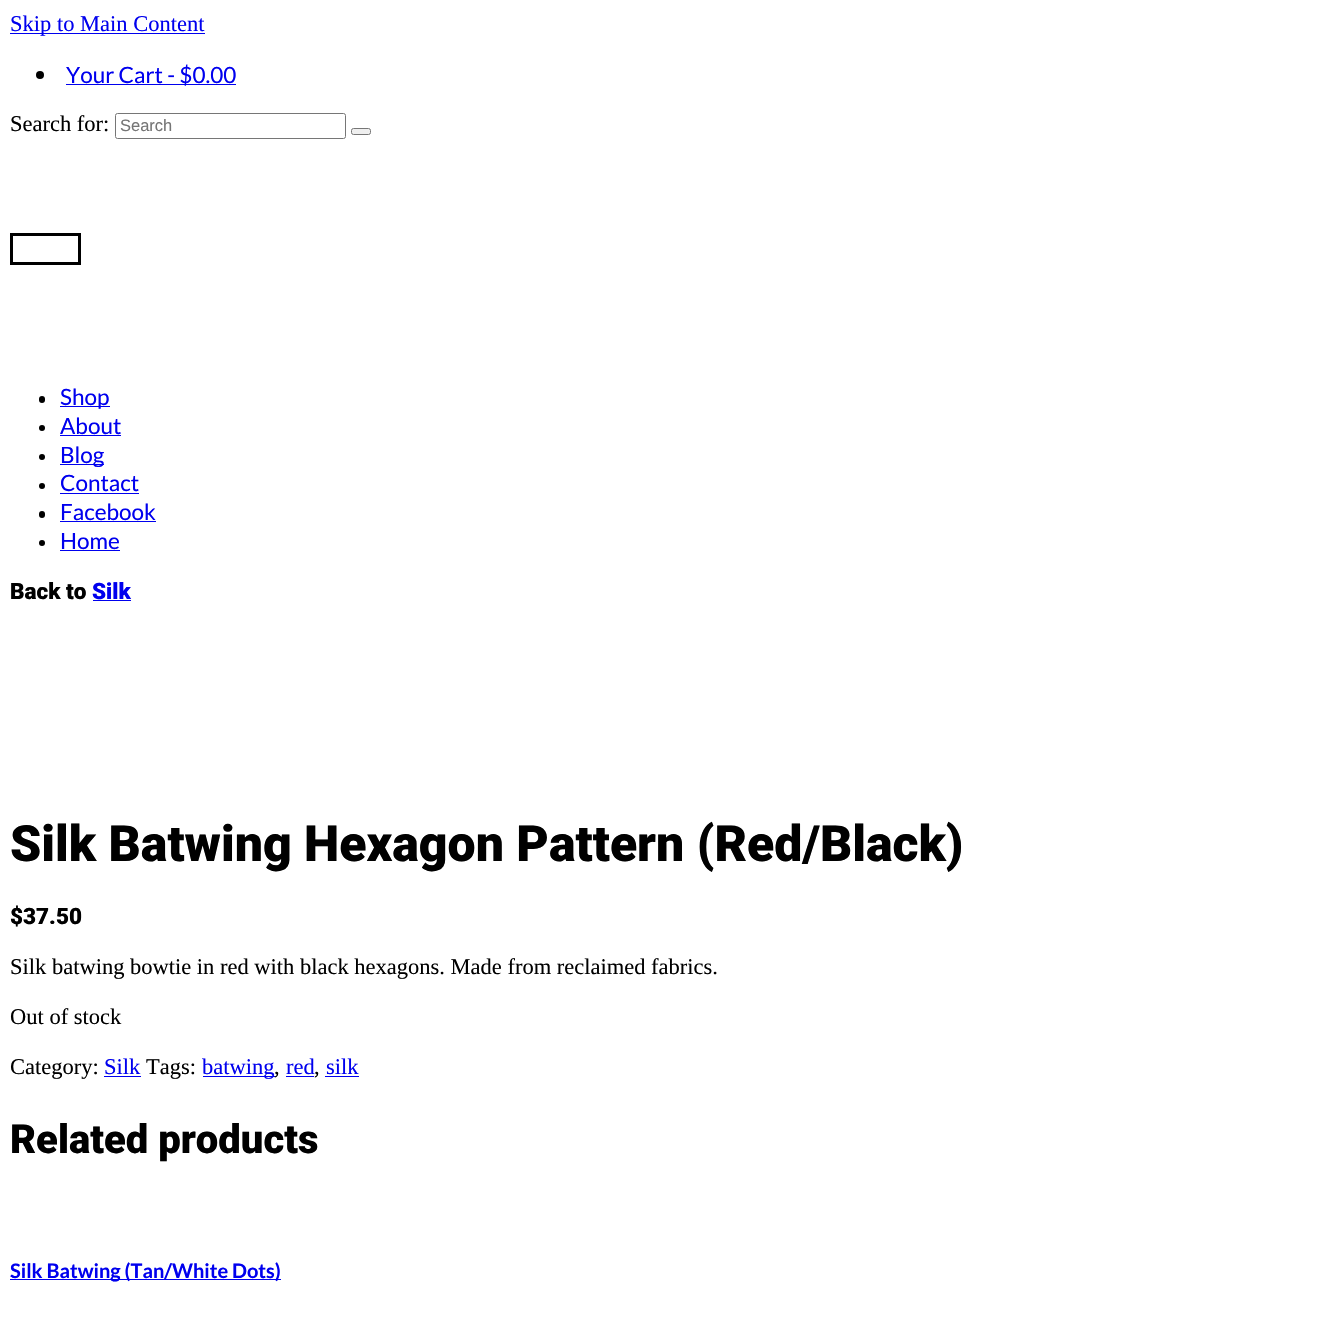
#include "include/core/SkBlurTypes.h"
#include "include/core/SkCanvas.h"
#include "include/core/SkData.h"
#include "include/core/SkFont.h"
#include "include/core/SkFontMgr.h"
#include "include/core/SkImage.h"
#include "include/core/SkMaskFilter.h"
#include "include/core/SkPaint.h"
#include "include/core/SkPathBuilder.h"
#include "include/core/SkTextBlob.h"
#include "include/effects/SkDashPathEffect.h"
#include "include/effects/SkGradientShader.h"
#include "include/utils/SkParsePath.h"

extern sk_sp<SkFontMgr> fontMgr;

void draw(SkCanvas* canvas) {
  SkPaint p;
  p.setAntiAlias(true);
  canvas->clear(SK_ColorWHITE);
  p.setColor(SkColorSetRGB(0, 0, 238));
  canvas->drawRect(SkRect::MakeLTRB(10, 33, 205, 34), p);
  p.setColor(SK_ColorBLACK);
  canvas->drawCircle(40, 75, 4, p);
  p.setColor(SkColorSetRGB(0, 0, 238));
  canvas->drawRect(SkRect::MakeLTRB(66, 84, 236, 85), p);
  p.setStyle(SkPaint::kStroke_Style);
  p.setStrokeWidth(1);
  p.setColor(SkColorSetRGB(118, 118, 118));
  canvas->drawRoundRect(SkRect::MakeLTRB(115.5f, 113.5f, 345.5f, 138.5f), 2, 2, p);
  p.setStyle(SkPaint::kFill_Style);
  p.setColor(SkColorSetRGB(239, 239, 239));
  canvas->drawRoundRect(SkRect::MakeLTRB(351.5f, 128.5f, 370.5f, 134.5f), 2, 2, p);
  p.setStyle(SkPaint::kStroke_Style);
  p.setColor(SkColorSetRGB(118, 118, 118));
  canvas->drawRoundRect(SkRect::MakeLTRB(351.5f, 128.5f, 370.5f, 134.5f), 2, 2, p);
  p.setStrokeWidth(3);
  p.setColor(SK_ColorBLACK);
  canvas->drawRect(SkRect::MakeLTRB(11.5f, 234.5f, 79.5f, 263.5f), p);
  p.setStyle(SkPaint::kFill_Style);
  canvas->drawRoundRect(SkRect::MakeLTRB(39, 396, 45, 403), 3, 3, p);
  p.setColor(SkColorSetRGB(0, 0, 238));
  canvas->drawRect(SkRect::MakeLTRB(60, 406, 110, 407), p);
  p.setColor(SK_ColorBLACK);
  canvas->drawCircle(42, 428, 3, p);
  p.setColor(SkColorSetRGB(0, 0, 238));
  canvas->drawRect(SkRect::MakeLTRB(60, 435, 121, 436), p);
  p.setColor(SK_ColorBLACK);
  canvas->drawCircle(42, 457, 3, p);
  p.setColor(SkColorSetRGB(0, 0, 238));
  canvas->drawRect(SkRect::MakeLTRB(60, 464, 104, 465), p);
  p.setColor(SK_ColorBLACK);
  canvas->drawCircle(42, 486, 3, p);
  p.setColor(SkColorSetRGB(0, 0, 238));
  canvas->drawRect(SkRect::MakeLTRB(60, 493, 139, 494), p);
  p.setColor(SK_ColorBLACK);
  canvas->drawRoundRect(SkRect::MakeLTRB(39, 511, 45, 518), 3, 3, p);
  p.setColor(SkColorSetRGB(0, 0, 238));
  canvas->drawRect(SkRect::MakeLTRB(60, 521, 156, 522), p);
  p.setColor(SK_ColorBLACK);
  canvas->drawCircle(42, 543, 3, p);
  p.setColor(SkColorSetRGB(0, 0, 238));
  canvas->drawRect(SkRect::MakeLTRB(60, 550, 120, 551), p);
  canvas->drawRect(SkRect::MakeLTRB(93, 600, 131, 601), p);
  canvas->drawRect(SkRect::MakeLTRB(104, 1076, 141, 1077), p);
  canvas->drawRect(SkRect::MakeLTRB(203, 1076, 275, 1077), p);
  canvas->drawRect(SkRect::MakeLTRB(286, 1076, 314, 1077), p);
  canvas->drawRect(SkRect::MakeLTRB(325, 1076, 359, 1077), p);
  canvas->drawRect(SkRect::MakeLTRB(10, 1279, 281, 1280), p);
  SkFont font1(fontMgr->matchFamilyStyle("Liberation Serif", SkFontStyle::Normal()), 22.5f);
  font1.setSubpixel(true);
  canvas->drawString("Skip to Main Content", 10, 31, font1, p);
  SkFont font2(fontMgr->matchFamilyStyle("Lato", SkFontStyle::Normal()), 22.5f);
  font2.setSubpixel(true);
  canvas->drawString("Your Cart - $0.00", 66, 83, font2, p);
  p.setColor(SK_ColorBLACK);
  canvas->drawString("Search for:", 10, 131, font1, p);
  SkFont font3(fontMgr->matchFamilyStyle("Liberation Sans", SkFontStyle::Normal()), 16.5f);
  font3.setSubpixel(true);
  p.setColor(SkColorSetRGB(117, 117, 117));
  canvas->drawString("Search", 120, 131, font3, p);
  p.setColor(SkColorSetRGB(0, 0, 238));
  canvas->drawString("Shop", 60, 405, font2, p);
  canvas->drawString("About", 60, 434, font2, p);
  canvas->drawString("Blog", 60, 463, font2, p);
  canvas->drawString("Contact", 60, 491, font2, p);
  canvas->drawString("Facebook", 60, 520, font2, p);
  canvas->drawString("Home", 60, 549, font2, p);
  SkFont font4(fontMgr->matchFamilyStyle("Roboto", SkFontStyle(900, SkFontStyle::kNormal_Width, SkFontStyle::kUpright_Slant)), 22.5f);
  font4.setSubpixel(true);
  p.setColor(SK_ColorBLACK);
  canvas->drawString("Back to", 10, 599, font4, p);
  p.setColor(SkColorSetRGB(0, 0, 238));
  canvas->drawString("Silk", 92, 599, font4, p);
  SkFont font5(fontMgr->matchFamilyStyle("Roboto", SkFontStyle(900, SkFontStyle::kNormal_Width, SkFontStyle::kUpright_Slant)), 50);
  font5.setSubpixel(true);
  p.setColor(SK_ColorBLACK);
  canvas->drawString("Silk Batwing Hexagon Pattern (Red/Black)", 10, 861, font5, p);
  canvas->drawString("$37.50", 10, 924, font4, p);
  canvas->drawString("Silk batwing bowtie in red with black hexagons. Made from reclaimed fabrics.", 10, 974, font1, p);
  canvas->drawString("Out of stock", 10, 1024, font1, p);
  canvas->drawString("Category:", 10, 1074, font1, p);
  p.setColor(SkColorSetRGB(0, 0, 238));
  canvas->drawString("Silk", 104, 1074, font1, p);
  p.setColor(SK_ColorBLACK);
  canvas->drawString("Tags:", 146, 1074, font1, p);
  p.setColor(SkColorSetRGB(0, 0, 238));
  canvas->drawString("batwing", 202, 1074, font1, p);
  p.setColor(SK_ColorBLACK);
  canvas->drawString(",", 274, 1074, font1, p);
  p.setColor(SkColorSetRGB(0, 0, 238));
  canvas->drawString("red", 286, 1074, font1, p);
  p.setColor(SK_ColorBLACK);
  canvas->drawString(",", 314, 1074, font1, p);
  p.setColor(SkColorSetRGB(0, 0, 238));
  canvas->drawString("silk", 326, 1074, font1, p);
  SkFont font6(fontMgr->matchFamilyStyle("Roboto", SkFontStyle(900, SkFontStyle::kNormal_Width, SkFontStyle::kUpright_Slant)), 40);
  font6.setSubpixel(true);
  p.setColor(SK_ColorBLACK);
  canvas->drawString("Related products", 10, 1153, font6, p);
  SkFont font7(fontMgr->matchFamilyStyle("Lato", SkFontStyle::Bold()), 20);
  font7.setSubpixel(true);
  p.setColor(SkColorSetRGB(0, 0, 238));
  canvas->drawString("Silk Batwing (Tan/White Dots)", 10, 1278, font7, p);
}
